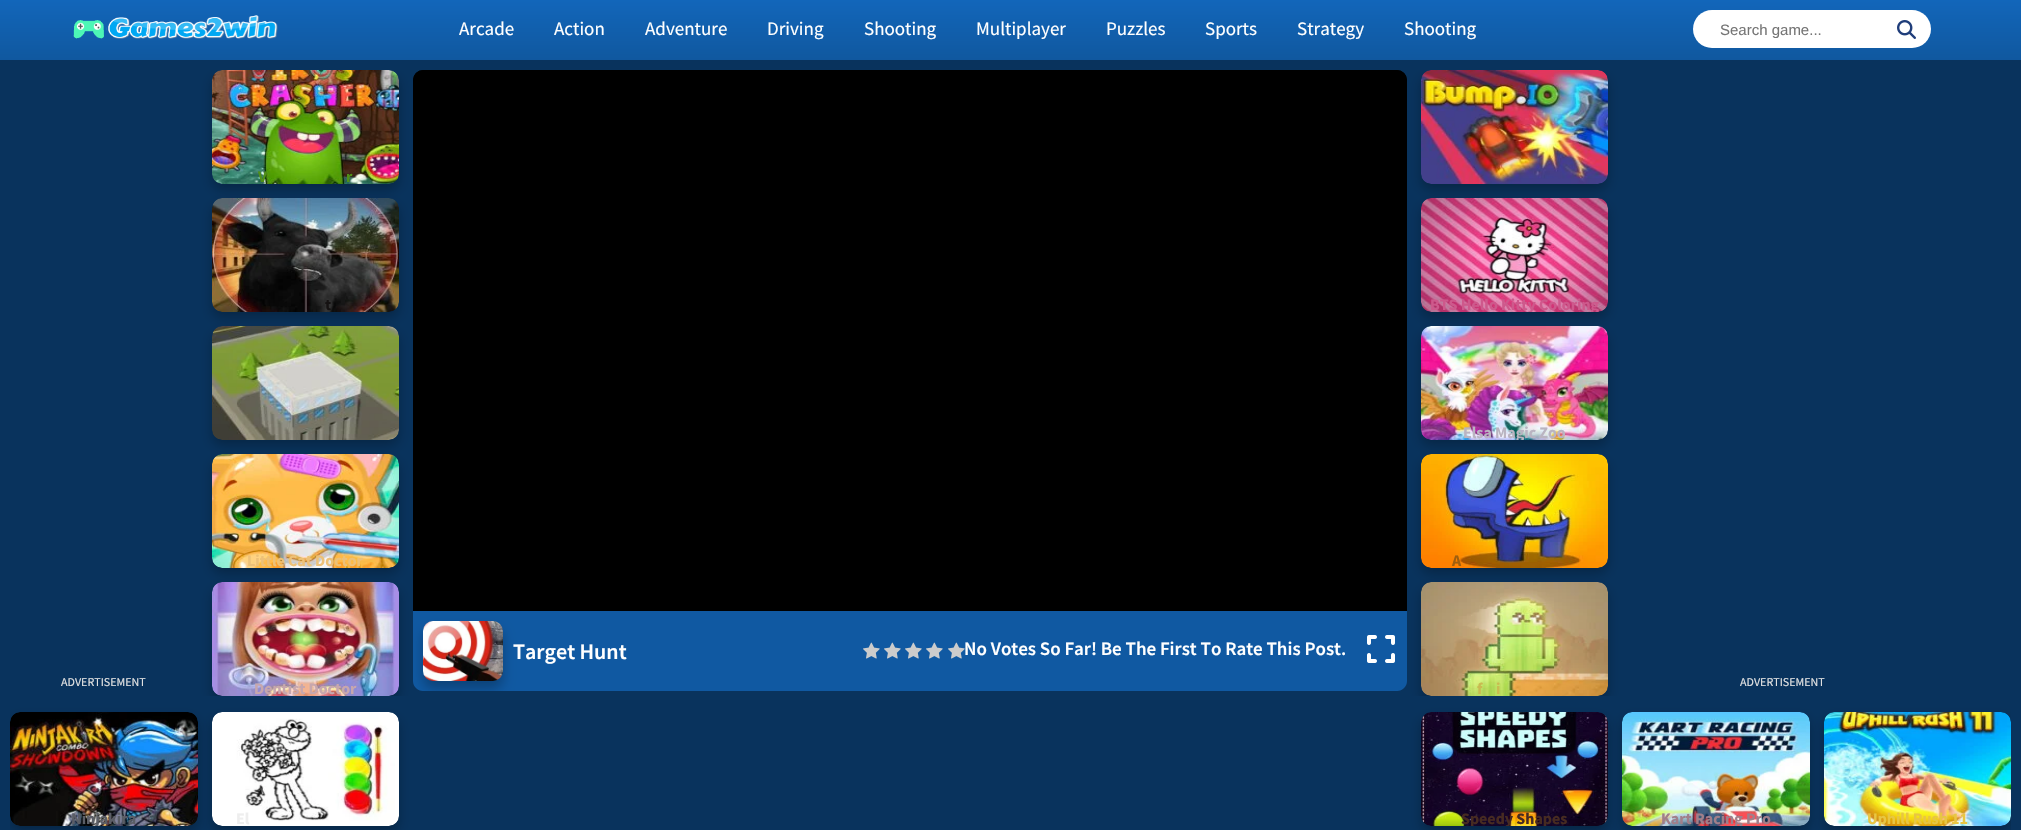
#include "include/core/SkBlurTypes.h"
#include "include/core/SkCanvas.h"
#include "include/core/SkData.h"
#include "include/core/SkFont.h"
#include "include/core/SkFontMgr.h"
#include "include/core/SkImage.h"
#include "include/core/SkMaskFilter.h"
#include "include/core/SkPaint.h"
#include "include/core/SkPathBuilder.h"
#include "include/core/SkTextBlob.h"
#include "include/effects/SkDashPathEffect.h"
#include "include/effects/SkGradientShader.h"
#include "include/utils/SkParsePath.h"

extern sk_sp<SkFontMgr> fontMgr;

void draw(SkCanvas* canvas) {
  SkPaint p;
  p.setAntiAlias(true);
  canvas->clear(SkColorSetRGB(9, 51, 93));
  canvas->save();
  canvas->clipRect(SkRect::MakeLTRB(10, 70, 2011, 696));
  p.setColor(SkColorSetARGB(61, 0, 0, 0));
  p.setMaskFilter(SkMaskFilter::MakeBlur(kNormal_SkBlurStyle, 6));
  canvas->drawRoundRect(SkRect::MakeLTRB(212, 76, 399, 190), 10, 10, p);
  p.setMaskFilter(nullptr);
  canvas->restore();
  p.setMaskFilter(SkMaskFilter::MakeBlur(kNormal_SkBlurStyle, 6));
  canvas->drawRoundRect(SkRect::MakeLTRB(212, 204, 399, 318), 10, 10, p);
  p.setMaskFilter(nullptr);
  p.setMaskFilter(SkMaskFilter::MakeBlur(kNormal_SkBlurStyle, 6));
  canvas->drawRoundRect(SkRect::MakeLTRB(212, 332, 399, 446), 10, 10, p);
  p.setMaskFilter(nullptr);
  p.setMaskFilter(SkMaskFilter::MakeBlur(kNormal_SkBlurStyle, 6));
  canvas->drawRoundRect(SkRect::MakeLTRB(212, 460, 399, 574), 10, 10, p);
  p.setMaskFilter(nullptr);
  canvas->save();
  canvas->clipRect(SkRect::MakeLTRB(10, 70, 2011, 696));
  p.setMaskFilter(SkMaskFilter::MakeBlur(kNormal_SkBlurStyle, 6));
  canvas->drawRoundRect(SkRect::MakeLTRB(212, 588, 399, 702), 10, 10, p);
  p.setMaskFilter(nullptr);
  canvas->restore();
  canvas->drawImageRect(SkImages::DeferredFromEncodedData(SkData::MakeFromFileName("images/8.png")), SkRect::MakeLTRB(413, 70, 1407, 611), SkSamplingOptions());
  canvas->save();
  canvas->clipRect(SkRect::MakeLTRB(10, 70, 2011, 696));
  p.setMaskFilter(SkMaskFilter::MakeBlur(kNormal_SkBlurStyle, 6));
  canvas->drawRoundRect(SkRect::MakeLTRB(1421, 76, 1608, 190), 10, 10, p);
  p.setMaskFilter(nullptr);
  canvas->restore();
  {
    const SkColor colors[] = {SkColorSetRGB(18, 102, 186), SkColorSetRGB(16, 88, 159)};
    const float stops[] = {0, 1};
    const SkPoint ends[] = {{1011, 0}, {1011, 60}};
    p.setShader(SkGradientShader::MakeLinear(ends, colors, stops, 2, SkTileMode::kClamp));
    p.setAlpha(255);
  }
  canvas->drawRect(SkRect::MakeLTRB(0, 0, 2021, 60), p);
  canvas->drawImageRect(SkImages::DeferredFromEncodedData(SkData::MakeFromFileName("images/1.png")), SkRect::MakeLTRB(73, 15, 278, 39), SkSamplingOptions());
  p.setShader(nullptr);
  p.setColor(SK_ColorWHITE);
  canvas->drawRoundRect(SkRect::MakeLTRB(1693, 10, 1931, 48), 19, 19, p);
  canvas->drawImageRect(SkImages::DeferredFromEncodedData(SkData::MakeFromFileName("images/2.png")), SkRect::MakeLTRB(1897, 20, 1916, 39), SkSamplingOptions());
  canvas->drawImageRect(SkImages::DeferredFromEncodedData(SkData::MakeFromFileName("images/3.png")), SkRect::MakeLTRB(212, 70, 399, 184), SkSamplingOptions());
  canvas->drawImageRect(SkImages::DeferredFromEncodedData(SkData::MakeFromFileName("images/4.png")), SkRect::MakeLTRB(212, 198, 399, 312), SkSamplingOptions());
  canvas->drawImageRect(SkImages::DeferredFromEncodedData(SkData::MakeFromFileName("images/5.png")), SkRect::MakeLTRB(212, 326, 399, 440), SkSamplingOptions());
  canvas->drawImageRect(SkImages::DeferredFromEncodedData(SkData::MakeFromFileName("images/6.png")), SkRect::MakeLTRB(212, 454, 399, 568), SkSamplingOptions());
  canvas->drawImageRect(SkImages::DeferredFromEncodedData(SkData::MakeFromFileName("images/7.png")), SkRect::MakeLTRB(212, 582, 399, 696), SkSamplingOptions());
  p.setColor(SkColorSetRGB(16, 89, 162));
  canvas->drawPath(SkPathBuilder().moveTo(413, 611).lineTo(1407, 611).lineTo(1407, 681).cubicTo(1407, 686.5f, 1402.5f, 691, 1397, 691).lineTo(423, 691).cubicTo(417.5f, 691, 413, 686.5f, 413, 681).close().detach(), p);
  canvas->save();
  canvas->clipPath(SkPathBuilder().moveTo(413, 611).lineTo(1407, 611).lineTo(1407, 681).cubicTo(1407, 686.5f, 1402.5f, 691, 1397, 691).lineTo(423, 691).cubicTo(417.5f, 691, 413, 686.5f, 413, 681).close().detach(), true);
  p.setColor(SkColorSetARGB(64, 0, 0, 0));
  p.setMaskFilter(SkMaskFilter::MakeBlur(kNormal_SkBlurStyle, 6));
  canvas->drawRoundRect(SkRect::MakeLTRB(423, 629, 503, 689), 10, 10, p);
  p.setMaskFilter(nullptr);
  canvas->restore();
  canvas->drawImageRect(SkImages::DeferredFromEncodedData(SkData::MakeFromFileName("images/9.png")), SkRect::MakeLTRB(423, 621, 503, 681), SkSamplingOptions());
  canvas->drawImageRect(SkImages::DeferredFromEncodedData(SkData::MakeFromFileName("images/10.png")), SkRect::MakeLTRB(863, 642, 880, 659), SkSamplingOptions());
  canvas->drawImageRect(SkImages::DeferredFromEncodedData(SkData::MakeFromFileName("images/10.png")), SkRect::MakeLTRB(884, 642, 901, 659), SkSamplingOptions());
  canvas->drawImageRect(SkImages::DeferredFromEncodedData(SkData::MakeFromFileName("images/10.png")), SkRect::MakeLTRB(905, 642, 922, 659), SkSamplingOptions());
  canvas->drawImageRect(SkImages::DeferredFromEncodedData(SkData::MakeFromFileName("images/10.png")), SkRect::MakeLTRB(926, 642, 943, 659), SkSamplingOptions());
  canvas->drawImageRect(SkImages::DeferredFromEncodedData(SkData::MakeFromFileName("images/10.png")), SkRect::MakeLTRB(948, 642, 965, 659), SkSamplingOptions());
  canvas->drawImageRect(SkImages::DeferredFromEncodedData(SkData::MakeFromFileName("images/11.png")), SkRect::MakeLTRB(1367, 635, 1395, 663), SkSamplingOptions());
  canvas->drawImageRect(SkImages::DeferredFromEncodedData(SkData::MakeFromFileName("images/12.png")), SkRect::MakeLTRB(1421, 70, 1608, 184), SkSamplingOptions());
  p.setColor(SkColorSetARGB(61, 0, 0, 0));
  p.setMaskFilter(SkMaskFilter::MakeBlur(kNormal_SkBlurStyle, 6));
  canvas->drawRoundRect(SkRect::MakeLTRB(1421, 204, 1608, 318), 10, 10, p);
  p.setMaskFilter(nullptr);
  canvas->drawImageRect(SkImages::DeferredFromEncodedData(SkData::MakeFromFileName("images/13.png")), SkRect::MakeLTRB(1421, 198, 1608, 312), SkSamplingOptions());
  p.setMaskFilter(SkMaskFilter::MakeBlur(kNormal_SkBlurStyle, 6));
  canvas->drawRoundRect(SkRect::MakeLTRB(1421, 332, 1608, 446), 10, 10, p);
  p.setMaskFilter(nullptr);
  canvas->drawImageRect(SkImages::DeferredFromEncodedData(SkData::MakeFromFileName("images/14.png")), SkRect::MakeLTRB(1421, 326, 1608, 440), SkSamplingOptions());
  p.setMaskFilter(SkMaskFilter::MakeBlur(kNormal_SkBlurStyle, 6));
  canvas->drawRoundRect(SkRect::MakeLTRB(1421, 460, 1608, 574), 10, 10, p);
  p.setMaskFilter(nullptr);
  canvas->drawImageRect(SkImages::DeferredFromEncodedData(SkData::MakeFromFileName("images/15.png")), SkRect::MakeLTRB(1421, 454, 1608, 568), SkSamplingOptions());
  canvas->save();
  canvas->clipRect(SkRect::MakeLTRB(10, 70, 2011, 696));
  p.setMaskFilter(SkMaskFilter::MakeBlur(kNormal_SkBlurStyle, 6));
  canvas->drawRoundRect(SkRect::MakeLTRB(1421, 588, 1608, 702), 10, 10, p);
  p.setMaskFilter(nullptr);
  canvas->restore();
  canvas->drawImageRect(SkImages::DeferredFromEncodedData(SkData::MakeFromFileName("images/16.png")), SkRect::MakeLTRB(1421, 582, 1608, 696), SkSamplingOptions());
  canvas->save();
  canvas->clipRect(SkRect::MakeLTRB(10, 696, 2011, 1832));
  p.setMaskFilter(SkMaskFilter::MakeBlur(kNormal_SkBlurStyle, 6));
  canvas->drawRoundRect(SkRect::MakeLTRB(10, 718, 198, 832), 10, 10, p);
  p.setMaskFilter(nullptr);
  canvas->restore();
  canvas->drawImageRect(SkImages::DeferredFromEncodedData(SkData::MakeFromFileName("images/17.png")), SkRect::MakeLTRB(10, 712, 198, 826), SkSamplingOptions());
  p.setMaskFilter(SkMaskFilter::MakeBlur(kNormal_SkBlurStyle, 6));
  canvas->drawRoundRect(SkRect::MakeLTRB(212, 718, 399, 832), 10, 10, p);
  p.setMaskFilter(nullptr);
  canvas->drawImageRect(SkImages::DeferredFromEncodedData(SkData::MakeFromFileName("images/18.png")), SkRect::MakeLTRB(212, 712, 399, 826), SkSamplingOptions());
  p.setMaskFilter(SkMaskFilter::MakeBlur(kNormal_SkBlurStyle, 6));
  canvas->drawRoundRect(SkRect::MakeLTRB(1421, 718, 1608, 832), 10, 10, p);
  p.setMaskFilter(nullptr);
  canvas->drawImageRect(SkImages::DeferredFromEncodedData(SkData::MakeFromFileName("images/19.png")), SkRect::MakeLTRB(1421, 712, 1608, 826), SkSamplingOptions());
  p.setMaskFilter(SkMaskFilter::MakeBlur(kNormal_SkBlurStyle, 6));
  canvas->drawRoundRect(SkRect::MakeLTRB(1622, 718, 1810, 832), 10, 10, p);
  p.setMaskFilter(nullptr);
  canvas->drawImageRect(SkImages::DeferredFromEncodedData(SkData::MakeFromFileName("images/20.png")), SkRect::MakeLTRB(1622, 712, 1810, 826), SkSamplingOptions());
  canvas->save();
  canvas->clipRect(SkRect::MakeLTRB(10, 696, 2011, 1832));
  p.setMaskFilter(SkMaskFilter::MakeBlur(kNormal_SkBlurStyle, 6));
  canvas->drawRoundRect(SkRect::MakeLTRB(1824, 718, 2011, 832), 10, 10, p);
  p.setMaskFilter(nullptr);
  canvas->restore();
  canvas->drawImageRect(SkImages::DeferredFromEncodedData(SkData::MakeFromFileName("images/21.png")), SkRect::MakeLTRB(1824, 712, 2011, 826), SkSamplingOptions());
  SkFont font1(fontMgr->matchFamilyStyle("Source Sans Pro", SkFontStyle::Normal()), 19);
  font1.setSubpixel(true);
  p.setColor(SK_ColorWHITE);
  canvas->drawString("Arcade", 459, 35, font1, p);
  canvas->drawString("Action", 554, 35, font1, p);
  canvas->drawString("Adventure", 645, 35, font1, p);
  canvas->drawString("Driving", 767, 35, font1, p);
  canvas->drawString("Shooting", 864, 35, font1, p);
  canvas->drawString("Multiplayer", 976, 35, font1, p);
  canvas->drawString("Puzzles", 1106, 35, font1, p);
  canvas->drawString("Sports", 1205, 35, font1, p);
  canvas->drawString("Strategy", 1297, 35, font1, p);
  canvas->drawString("Shooting", 1404, 35, font1, p);
  SkFont font2(fontMgr->matchFamilyStyle("Liberation Sans", SkFontStyle::Normal()), 15);
  font2.setSubpixel(true);
  p.setColor(SkColorSetRGB(117, 117, 117));
  canvas->drawString("Search game...", 1720, 35, font2, p);
  SkFont font3(fontMgr->matchFamilyStyle("Source Sans Pro", SkFontStyle::Bold()), 16);
  font3.setSubpixel(true);
  p.setColor(SkColorSetRGB(80, 144, 23));
  canvas->drawString("V", 258, 182, font3, p);
  canvas->drawString("r", 346, 182, font3, p);
  p.setColor(SkColorSetRGB(21, 18, 18));
  canvas->drawString("t", 325, 310, font3, p);
  p.setColor(SkColorSetRGB(237, 193, 120));
  canvas->drawString("Little Cat Doctor", 247, 566, font3, p);
  p.setColor(SkColorSetRGB(199, 167, 173));
  canvas->drawString("Dentist Doctor", 254, 694, font3, p);
  SkFont font4(fontMgr->matchFamilyStyle("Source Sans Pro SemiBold", SkFontStyle(600, SkFontStyle::kNormal_Width, SkFontStyle::kUpright_Slant)), 22);
  font4.setSubpixel(true);
  p.setColor(SK_ColorWHITE);
  canvas->drawString("Target Hunt", 513, 659, font4, p);
  SkFont font5(fontMgr->matchFamilyStyle("Source Sans Pro SemiBold", SkFontStyle(600, SkFontStyle::kNormal_Width, SkFontStyle::kUpright_Slant)), 19);
  font5.setSubpixel(true);
  canvas->drawString("No Votes So Far! Be The First To Rate This Post.", 964, 655, font5, p);
  canvas->save();
  canvas->clipPath(SkPathBuilder().moveTo(1431, 198).lineTo(1598, 198).cubicTo(1603.5f, 198, 1608, 202.5f, 1608, 208).lineTo(1608, 302).cubicTo(1608, 307.5f, 1603.5f, 312, 1598, 312).lineTo(1431, 312).cubicTo(1425.5f, 312, 1421, 307.5f, 1421, 302).lineTo(1421, 208).cubicTo(1421, 202.5f, 1425.5f, 198, 1431, 198).close().detach(), true);
  p.setColor(SkColorSetRGB(206, 89, 140));
  canvas->drawString("BTS Hello Kitty Coloring", 1430, 310, font3, p);
  canvas->restore();
  canvas->save();
  canvas->clipPath(SkPathBuilder().moveTo(1431, 326).lineTo(1598, 326).cubicTo(1603.5f, 326, 1608, 330.5f, 1608, 336).lineTo(1608, 430).cubicTo(1608, 435.5f, 1603.5f, 440, 1598, 440).lineTo(1431, 440).cubicTo(1425.5f, 440, 1421, 435.5f, 1421, 430).lineTo(1421, 336).cubicTo(1421, 330.5f, 1425.5f, 326, 1431, 326).close().detach(), true);
  p.setColor(SkColorSetRGB(186, 180, 193));
  canvas->drawString("Elsa Magic Zoo", 1463, 438, font3, p);
  canvas->restore();
  p.setColor(SkColorSetRGB(159, 95, 14));
  canvas->drawString("A", 1452, 566, font3, p);
  p.setColor(SkColorSetRGB(201, 187, 81));
  canvas->drawString("f", 1477, 694, font3, p);
  canvas->drawString("i", 1496, 694, font3, p);
  SkFont font6(fontMgr->matchFamilyStyle("Source Sans Pro", SkFontStyle::Normal()), 12);
  font6.setSubpixel(true);
  p.setColor(SkColorSetRGB(227, 227, 227));
  canvas->drawString("ADVERTISEMENT", 61, 686, font6, p);
  canvas->drawString("ADVERTISEMENT", 1740, 686, font6, p);
  canvas->save();
  canvas->clipPath(SkPathBuilder().moveTo(20, 712).lineTo(188, 712).cubicTo(193.5f, 712, 198, 716.5f, 198, 722).lineTo(198, 816).cubicTo(198, 821.5f, 193.5f, 826, 188, 826).lineTo(20, 826).cubicTo(14.5f, 826, 10, 821.5f, 10, 816).lineTo(10, 722).cubicTo(10, 716.5f, 14.5f, 712, 20, 712).close().detach(), true);
  p.setColor(SkColorSetRGB(91, 94, 102));
  canvas->drawString("Ninjakira", 71, 824, font3, p);
  canvas->restore();
  p.setColor(SkColorSetRGB(238, 238, 238));
  canvas->drawString("El", 236, 824, font3, p);
  canvas->save();
  canvas->clipPath(SkPathBuilder().moveTo(1431, 712).lineTo(1598, 712).cubicTo(1603.5f, 712, 1608, 716.5f, 1608, 722).lineTo(1608, 816).cubicTo(1608, 821.5f, 1603.5f, 826, 1598, 826).lineTo(1431, 826).cubicTo(1425.5f, 826, 1421, 821.5f, 1421, 816).lineTo(1421, 722).cubicTo(1421, 716.5f, 1425.5f, 712, 1431, 712).close().detach(), true);
  p.setColor(SkColorSetRGB(71, 43, 33));
  canvas->drawString("Speedy Shapes", 1461, 824, font3, p);
  canvas->restore();
  canvas->save();
  canvas->clipPath(SkPathBuilder().moveTo(1632, 712).lineTo(1800, 712).cubicTo(1805.5f, 712, 1810, 716.5f, 1810, 722).lineTo(1810, 816).cubicTo(1810, 821.5f, 1805.5f, 826, 1800, 826).lineTo(1632, 826).cubicTo(1626.5f, 826, 1622, 821.5f, 1622, 816).lineTo(1622, 722).cubicTo(1622, 716.5f, 1626.5f, 712, 1632, 712).close().detach(), true);
  p.setColor(SkColorSetRGB(160, 127, 138));
  canvas->drawString("Kart Racing Pro", 1661, 824, font3, p);
  canvas->restore();
  canvas->save();
  canvas->clipPath(SkPathBuilder().moveTo(1834, 712).lineTo(2001, 712).cubicTo(2006.5f, 712, 2011, 716.5f, 2011, 722).lineTo(2011, 816).cubicTo(2011, 821.5f, 2006.5f, 826, 2001, 826).lineTo(1834, 826).cubicTo(1828.5f, 826, 1824, 821.5f, 1824, 816).lineTo(1824, 722).cubicTo(1824, 716.5f, 1828.5f, 712, 1834, 712).close().detach(), true);
  p.setColor(SkColorSetRGB(232, 198, 67));
  canvas->drawString("Uphill Rush 11", 1867, 824, font3, p);
  canvas->restore();
}
